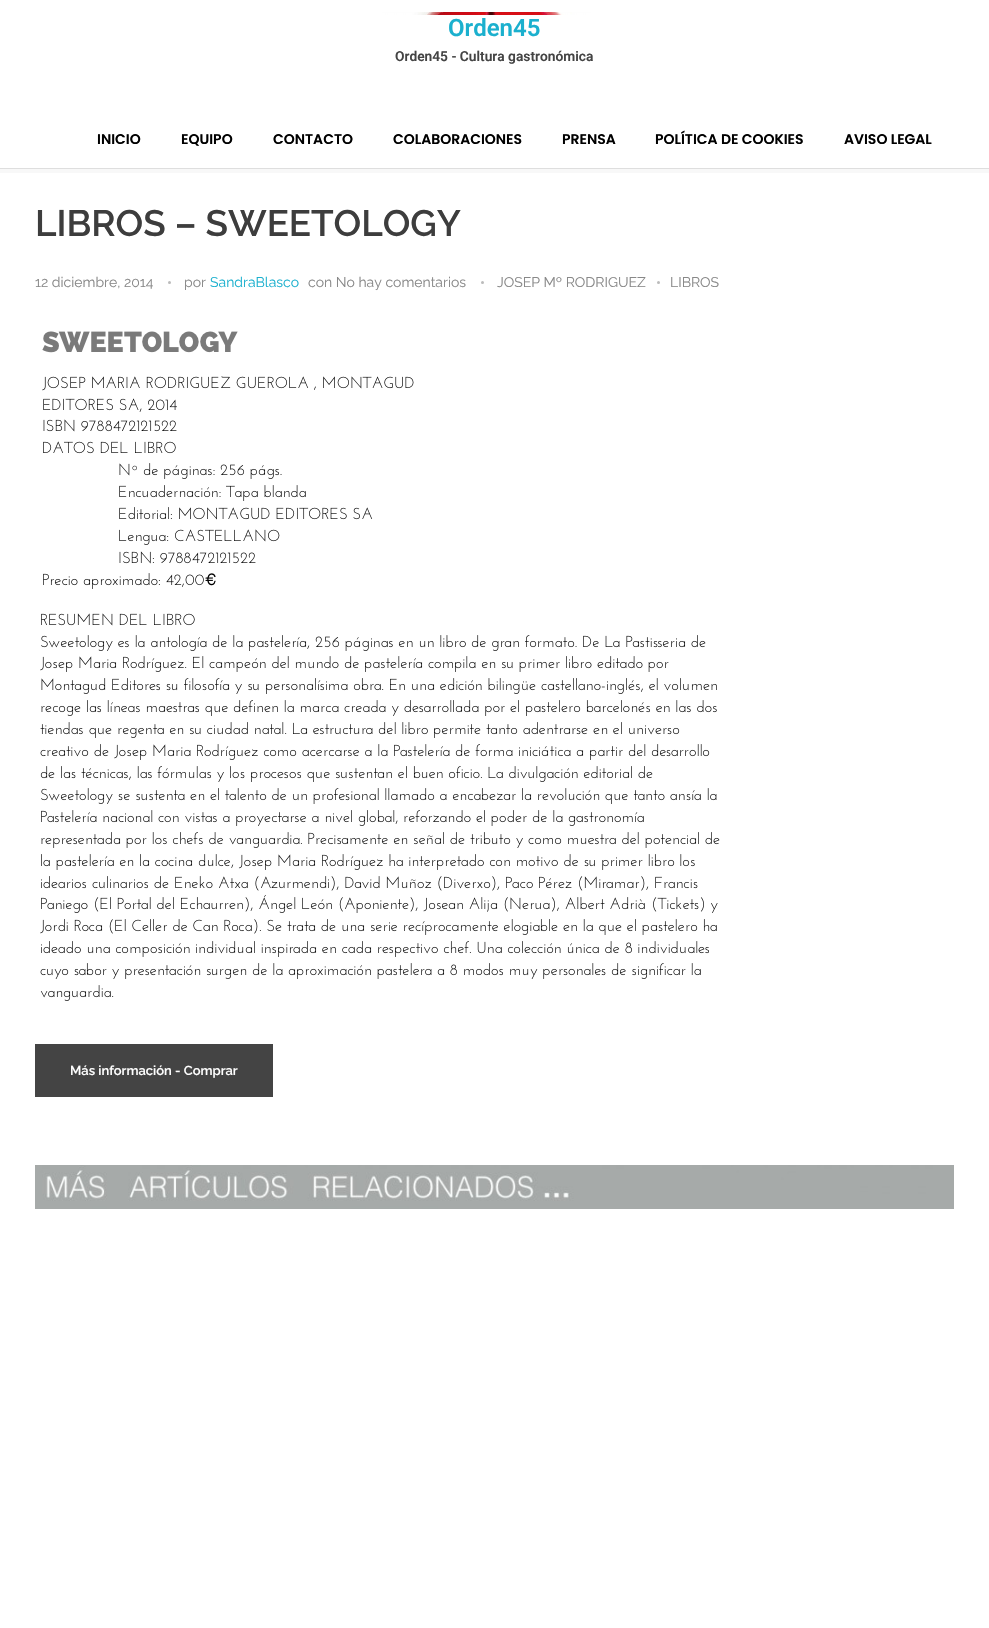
#include "include/core/SkBlurTypes.h"
#include "include/core/SkCanvas.h"
#include "include/core/SkData.h"
#include "include/core/SkFont.h"
#include "include/core/SkFontMgr.h"
#include "include/core/SkImage.h"
#include "include/core/SkMaskFilter.h"
#include "include/core/SkPaint.h"
#include "include/core/SkPathBuilder.h"
#include "include/core/SkTextBlob.h"
#include "include/effects/SkDashPathEffect.h"
#include "include/effects/SkGradientShader.h"
#include "include/utils/SkParsePath.h"

extern sk_sp<SkFontMgr> fontMgr;

void draw(SkCanvas* canvas) {
  SkPaint p;
  p.setAntiAlias(true);
  canvas->clear(SK_ColorWHITE);
  p.setColor(SkColorSetRGB(248, 248, 248));
  canvas->drawRect(SkRect::MakeLTRB(0, 169, 989, 173), p);
  p.setColor(SkColorSetRGB(222, 222, 222));
  canvas->drawRect(SkRect::MakeLTRB(0, 168, 989, 169), p);
  canvas->drawImageRect(SkImages::DeferredFromEncodedData(SkData::MakeFromFileName("images/1.png")), SkRect::MakeLTRB(382, 12, 591, 15), SkSamplingOptions());
  p.setColor(SkColorSetRGB(187, 187, 187));
  canvas->drawCircle(169.5f, 282.5f, 1.5f, p);
  canvas->drawCircle(482.5f, 282.5f, 1.5f, p);
  canvas->drawCircle(658.5f, 282.5f, 1.5f, p);
  canvas->drawImageRect(SkImages::DeferredFromEncodedData(SkData::MakeFromFileName("images/2.png")), SkRect::MakeLTRB(42, 331, 414, 589), SkSamplingOptions());
  canvas->drawImageRect(SkImages::DeferredFromEncodedData(SkData::MakeFromFileName("images/3.png")), SkRect::MakeLTRB(40, 613, 720, 1001), SkSamplingOptions());
  p.setColor(SkColorSetRGB(68, 68, 68));
  canvas->drawRect(SkRect::MakeLTRB(35, 1044, 273, 1097), p);
  canvas->drawImageRect(SkImages::DeferredFromEncodedData(SkData::MakeFromFileName("images/4.png")), SkRect::MakeLTRB(35, 1165, 954, 1209), SkSamplingOptions());
  SkFont font1(fontMgr->matchFamilyStyle("Roboto", SkFontStyle(600, SkFontStyle::kNormal_Width, SkFontStyle::kUpright_Slant)), 24);
  font1.setSubpixel(true);
  p.setColor(SkColorSetRGB(27, 176, 206));
  canvas->drawString("Orden45", 448, 36, font1, p);
  SkFont font2(fontMgr->matchFamilyStyle("Roboto", SkFontStyle(600, SkFontStyle::kNormal_Width, SkFontStyle::kUpright_Slant)), 13.75f);
  font2.setSubpixel(true);
  p.setColor(SkColorSetRGB(68, 68, 68));
  canvas->drawString("Orden45 - Cultura gastronómica", 395, 61, font2, p);
  SkFont font3(fontMgr->matchFamilyStyle("Poppins", SkFontStyle(600, SkFontStyle::kNormal_Width, SkFontStyle::kUpright_Slant)), 14);
  font3.setSubpixel(true);
  p.setColor(SK_ColorBLACK);
  canvas->drawString("INICIO", 97, 144, font3, p);
  canvas->drawString("EQUIPO", 181, 144, font3, p);
  canvas->drawString("CONTACTO", 273, 144, font3, p);
  canvas->drawString("COLABORACIONES", 393, 144, font3, p);
  canvas->drawString("PRENSA", 562, 144, font3, p);
  canvas->drawString("POLÍTICA DE COOKIES", 655, 144, font3, p);
  canvas->drawString("AVISO LEGAL", 844, 144, font3, p);
  SkFont font4(fontMgr->matchFamilyStyle("Raleway", SkFontStyle(600, SkFontStyle::kNormal_Width, SkFontStyle::kUpright_Slant)), 36.75f);
  font4.setSubpixel(true);
  p.setColor(SkColorSetRGB(61, 61, 61));
  canvas->drawString("LIBROS – SWEETOLOGY", 35, 236, font4, p);
  SkFont font5(fontMgr->matchFamilyStyle("Raleway", SkFontStyle::Normal()), 14);
  font5.setSubpixel(true);
  p.setColor(SkColorSetRGB(136, 136, 136));
  canvas->drawString("12 diciembre, 2014", 35, 287, font5, p);
  canvas->drawString("por", 184, 287, font5, p);
  p.setColor(SkColorSetRGB(27, 176, 206));
  canvas->drawString("SandraBlasco", 210, 287, font5, p);
  p.setColor(SkColorSetRGB(136, 136, 136));
  canvas->drawString("con No hay comentarios", 308, 287, font5, p);
  canvas->drawString("JOSEP Mº RODRIGUEZ", 497, 287, font5, p);
  canvas->drawString("LIBROS", 670, 287, font5, p);
  SkFont font6(fontMgr->matchFamilyStyle("Raleway", SkFontStyle(600, SkFontStyle::kNormal_Width, SkFontStyle::kUpright_Slant)), 13);
  font6.setSubpixel(true);
  p.setColor(SK_ColorWHITE);
  canvas->drawString("Más información - Comprar", 70, 1075, font6, p);
}
